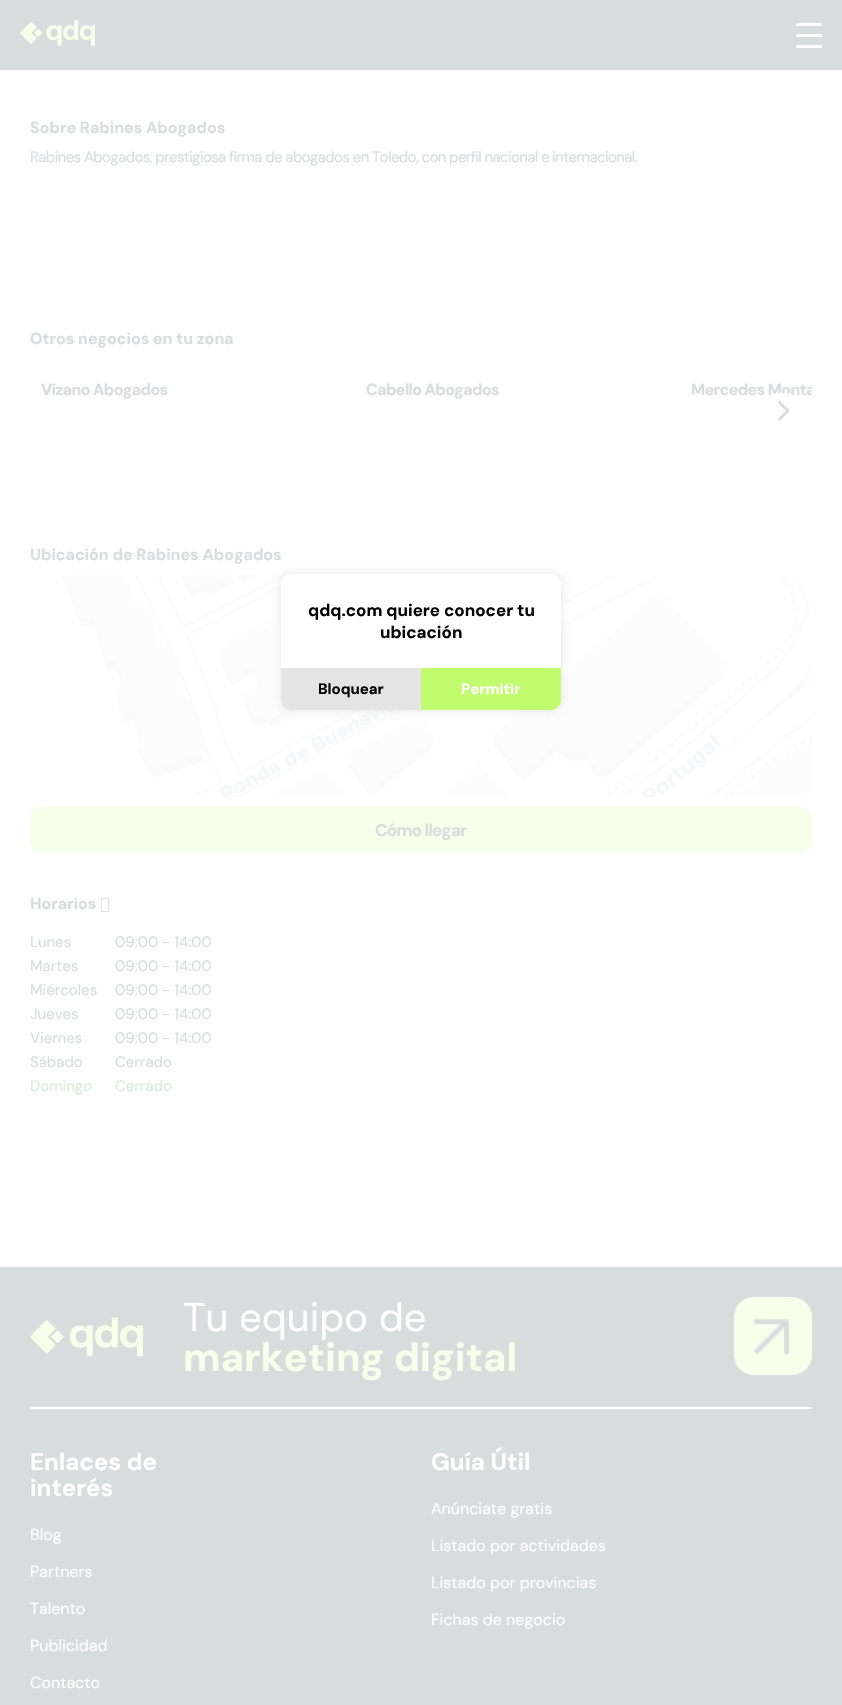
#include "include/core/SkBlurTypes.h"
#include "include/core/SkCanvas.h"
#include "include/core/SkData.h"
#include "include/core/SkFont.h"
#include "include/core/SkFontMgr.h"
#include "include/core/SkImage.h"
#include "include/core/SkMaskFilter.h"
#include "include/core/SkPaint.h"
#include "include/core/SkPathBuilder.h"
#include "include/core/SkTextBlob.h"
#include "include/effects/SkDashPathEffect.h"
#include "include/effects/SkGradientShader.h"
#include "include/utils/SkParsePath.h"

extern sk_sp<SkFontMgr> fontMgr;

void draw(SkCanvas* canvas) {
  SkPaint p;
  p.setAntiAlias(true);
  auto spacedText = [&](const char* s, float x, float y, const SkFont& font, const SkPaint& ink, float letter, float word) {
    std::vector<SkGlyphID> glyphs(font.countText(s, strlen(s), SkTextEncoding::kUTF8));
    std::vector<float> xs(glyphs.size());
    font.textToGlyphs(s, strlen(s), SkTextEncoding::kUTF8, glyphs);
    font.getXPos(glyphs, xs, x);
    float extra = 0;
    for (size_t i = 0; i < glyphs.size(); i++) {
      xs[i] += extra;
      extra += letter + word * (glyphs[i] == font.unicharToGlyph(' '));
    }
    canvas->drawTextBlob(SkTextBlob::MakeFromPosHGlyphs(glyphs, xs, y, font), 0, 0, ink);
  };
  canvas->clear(SkColorSetRGB(254, 254, 254));
  p.setColor(SkColorSetRGB(217, 220, 221));
  canvas->drawRect(SkRect::MakeLTRB(0, 0, 842, 70), p);
  canvas->drawImageRect(SkImages::DeferredFromEncodedData(SkData::MakeFromFileName("images/1.png")), SkRect::MakeLTRB(20, 20, 95, 46), SkSamplingOptions());
  p.setColor(SkColorSetRGB(254, 254, 254));
  canvas->drawRoundRect(SkRect::MakeLTRB(796, 23, 822, 26), 1.5f, 1.5f, p);
  canvas->drawRoundRect(SkRect::MakeLTRB(796, 34, 822, 37), 1.5f, 1.5f, p);
  canvas->drawRoundRect(SkRect::MakeLTRB(796, 45, 822, 48), 1.5f, 1.5f, p);
  p.setColor(SkColorSetRGB(251, 251, 251));
  canvas->drawRoundRect(SkRect::MakeLTRB(30, 575, 812, 797), 10, 10, p);
  canvas->drawImageRect(SkImages::DeferredFromEncodedData(SkData::MakeFromFileName("images/3.png")), SkRect::MakeLTRB(30, 575, 40, 797), SkSamplingOptions());
  canvas->drawImageRect(SkImages::DeferredFromEncodedData(SkData::MakeFromFileName("images/4.png")), SkRect::MakeLTRB(30, 575, 812, 797), SkSamplingOptions());
  p.setColor(SkColorSetRGB(246, 255, 233));
  canvas->drawRoundRect(SkRect::MakeLTRB(30, 807, 812, 852), 10, 10, p);
  canvas->drawImageRect(SkImages::DeferredFromEncodedData(SkData::MakeFromFileName("images/5.png")), SkRect::MakeLTRB(100, 897, 109, 912), SkSamplingOptions());
  p.setColor(SkColorSetARGB(23, 0, 0, 0));
  p.setMaskFilter(SkMaskFilter::MakeBlur(kNormal_SkBlurStyle, 4));
  canvas->drawRoundRect(SkRect::MakeLTRB(281, 574, 561, 710), 10, 10, p);
  p.setMaskFilter(nullptr);
  p.setColor(SK_ColorWHITE);
  canvas->drawPath(SkPathBuilder().moveTo(291, 574).lineTo(551, 574).cubicTo(556.5f, 574, 561, 578.5f, 561, 584).lineTo(561, 668).lineTo(281, 668).lineTo(281, 584).cubicTo(281, 578.5f, 285.5f, 574, 291, 574).close().detach(), p);
  p.setColor(SkColorSetRGB(228, 228, 228));
  canvas->drawPath(SkPathBuilder().moveTo(281, 668).lineTo(421, 668).lineTo(421, 710).lineTo(291, 710).cubicTo(285.5f, 710, 281, 705.5f, 281, 700).close().detach(), p);
  p.setColor(SkColorSetRGB(193, 252, 110));
  canvas->drawPath(SkPathBuilder().moveTo(421, 668).lineTo(561, 668).lineTo(561, 700).cubicTo(561, 705.5f, 556.5f, 710, 551, 710).lineTo(421, 710).close().detach(), p);
  p.setColor(SkColorSetRGB(217, 220, 221));
  canvas->drawRect(SkRect::MakeLTRB(0, 1267, 842, 1705), p);
  p.setColor(SkColorSetRGB(254, 254, 254));
  canvas->drawRect(SkRect::MakeLTRB(30, 1407, 812, 1409), p);
  canvas->drawImageRect(SkImages::DeferredFromEncodedData(SkData::MakeFromFileName("images/6.png")), SkRect::MakeLTRB(30, 1317, 143, 1357), SkSamplingOptions());
  canvas->drawImageRect(SkImages::DeferredFromEncodedData(SkData::MakeFromFileName("images/7.png")), SkRect::MakeLTRB(734, 1297, 812, 1375), SkSamplingOptions());
  SkFont font1(fontMgr->matchFamilyStyle("DM Sans", SkFontStyle::Bold()), 16);
  font1.setSubpixel(true);
  p.setColor(SkColorSetRGB(217, 220, 221));
  canvas->drawString("Sobre Rabines Abogados", 30, 133, font1, p);
  SkFont font2(fontMgr->matchFamilyStyle("DM Sans", SkFontStyle::Normal()), 15);
  font2.setSubpixel(true);
  spacedText("Rabines Abogados, prestigiosa firma de abogados en Toledo, con perfil nacional e internacional.", 30, 162, font2, p, -0.6f, 0);
  canvas->drawString("Otros negocios en tu zona", 30, 344, font1, p);
  spacedText("Vizano Abogados", 41, 395, font1, p, -0.6f, 0);
  spacedText("Cabello Abogados", 366, 395, font1, p, -0.6f, 0);
  canvas->save();
  canvas->clipRect(SkRect::MakeLTRB(691, 370, 812, 404));
  spacedText("Mercedes Monta", 691, 395, font1, p, -0.6f, 0);
  canvas->restore();
  p.setColor(SK_ColorWHITE);
  canvas->drawCircle(784, 411, 18, p);
  canvas->drawImageRect(SkImages::DeferredFromEncodedData(SkData::MakeFromFileName("images/2.png")), SkRect::MakeLTRB(778, 400, 790, 421), SkSamplingOptions());
  p.setColor(SkColorSetRGB(217, 220, 221));
  canvas->drawString("Ubicación de Rabines Abogados", 30, 560, font1, p);
  SkFont font3(fontMgr->matchFamilyStyle("DM Sans", SkFontStyle::Bold()), 17);
  font3.setSubpixel(true);
  spacedText("Cómo llegar", 375, 836, font3, p, -0.75f, 0);
  canvas->drawString("Horarios", 30, 909, font1, p);
  canvas->drawString("Lunes", 30, 947, font2, p);
  canvas->drawString("09:00 - 14:00", 115, 947, font2, p);
  canvas->drawString("Martes", 30, 971, font2, p);
  canvas->drawString("09:00 - 14:00", 115, 971, font2, p);
  canvas->drawString("Miércoles", 30, 995, font2, p);
  canvas->drawString("09:00 - 14:00", 115, 995, font2, p);
  canvas->drawString("Jueves", 30, 1019, font2, p);
  canvas->drawString("09:00 - 14:00", 115, 1019, font2, p);
  canvas->drawString("Viernes", 30, 1043, font2, p);
  canvas->drawString("09:00 - 14:00", 115, 1043, font2, p);
  canvas->drawString("Sábado", 30, 1067, font2, p);
  canvas->drawString("Cerrado", 115, 1067, font2, p);
  p.setColor(SkColorSetRGB(217, 236, 217));
  canvas->drawString("Domingo", 30, 1091, font2, p);
  canvas->drawString("Cerrado", 115, 1091, font2, p);
  p.setColor(SK_ColorBLACK);
  canvas->drawString("qdq.com quiere conocer tu", 308, 616, font3, p);
  canvas->drawString("ubicación", 380, 638, font3, p);
  SkFont font4(fontMgr->matchFamilyStyle("DM Sans", SkFontStyle::Bold()), 15);
  font4.setSubpixel(true);
  canvas->drawString("Bloquear", 318, 694, font4, p);
  p.setColor(SK_ColorWHITE);
  canvas->drawString("Permitir", 461, 694, font4, p);
  SkFont font5(fontMgr->matchFamilyStyle("DM Sans", SkFontStyle::Normal()), 40);
  font5.setSubpixel(true);
  canvas->drawString("Tu equipo de", 183, 1331, font5, p);
  SkFont font6(fontMgr->matchFamilyStyle("DM Sans", SkFontStyle::Bold()), 40);
  font6.setSubpixel(true);
  p.setColor(SkColorSetRGB(246, 255, 233));
  canvas->drawString("marketing digital", 183, 1371, font6, p);
  SkFont font7(fontMgr->matchFamilyStyle("DM Sans", SkFontStyle::Bold()), 24);
  font7.setSubpixel(true);
  p.setColor(SK_ColorWHITE);
  canvas->drawString("Enlaces de", 30, 1470, font7, p);
  canvas->drawString("interés", 30, 1496, font7, p);
  SkFont font8(fontMgr->matchFamilyStyle("DM Sans", SkFontStyle::Normal()), 16);
  font8.setSubpixel(true);
  canvas->drawString("Blog", 30, 1540, font8, p);
  canvas->drawString("Partners", 30, 1577, font8, p);
  canvas->drawString("Talento", 30, 1614, font8, p);
  canvas->drawString("Publicidad", 30, 1651, font8, p);
  canvas->drawString("Contacto", 30, 1688, font8, p);
  canvas->drawString("Guía Útil", 431, 1470, font7, p);
  canvas->drawString("Anúnciate gratis", 431, 1514, font8, p);
  canvas->drawString("Listado por actividades", 431, 1551, font8, p);
  canvas->drawString("Listado por provincias", 431, 1588, font8, p);
  canvas->drawString("Fichas de negocio", 431, 1625, font8, p);
}
